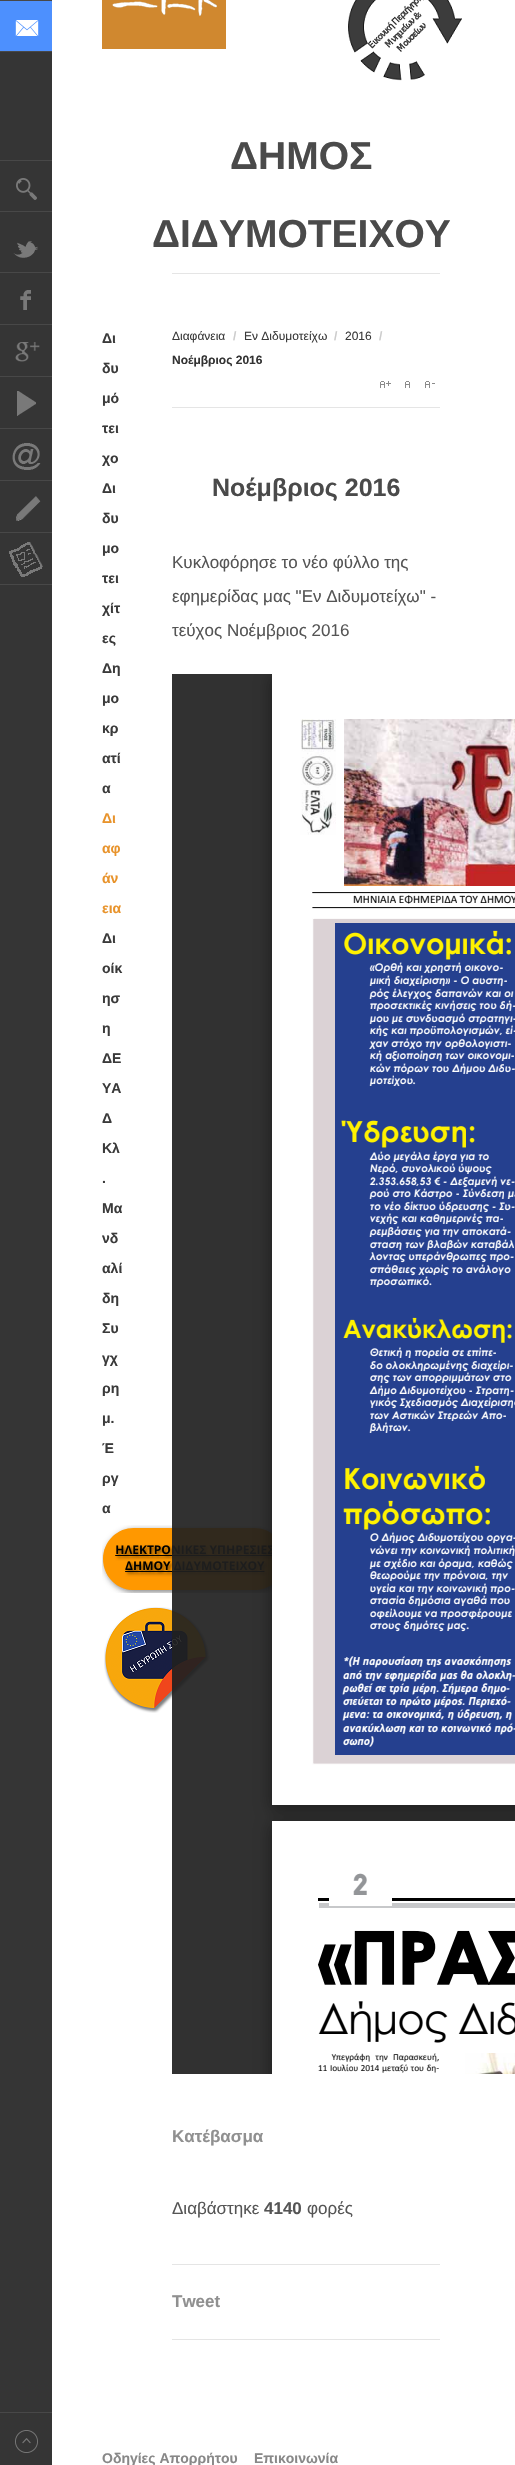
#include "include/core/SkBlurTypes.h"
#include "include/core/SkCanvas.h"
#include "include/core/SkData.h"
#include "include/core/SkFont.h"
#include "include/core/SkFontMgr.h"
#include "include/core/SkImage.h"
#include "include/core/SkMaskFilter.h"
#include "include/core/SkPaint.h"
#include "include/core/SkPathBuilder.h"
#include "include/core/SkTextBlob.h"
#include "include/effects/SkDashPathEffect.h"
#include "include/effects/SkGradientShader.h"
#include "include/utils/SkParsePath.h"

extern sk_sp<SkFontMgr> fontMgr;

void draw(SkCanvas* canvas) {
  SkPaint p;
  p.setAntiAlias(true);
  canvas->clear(SkColorSetRGB(53, 53, 53));
  p.setColor(SK_ColorWHITE);
  canvas->drawRect(SkRect::MakeLTRB(52, 0, 515, 2465), p);
  canvas->drawImageRect(SkImages::DeferredFromEncodedData(SkData::MakeFromFileName("images/1.png")), SkRect::MakeLTRB(0, 1, 52, 51), SkSamplingOptions());
  p.setColor(SkColorSetRGB(72, 72, 72));
  canvas->drawRect(SkRect::MakeLTRB(0, 0, 52, 1), p);
  canvas->drawRect(SkRect::MakeLTRB(0, 51, 52, 52), p);
  canvas->drawImageRect(SkImages::DeferredFromEncodedData(SkData::MakeFromFileName("images/2.png")), SkRect::MakeLTRB(16, 178, 37, 200), SkSamplingOptions());
  canvas->drawRect(SkRect::MakeLTRB(0, 160, 52, 161), p);
  canvas->drawRect(SkRect::MakeLTRB(0, 211, 52, 212), p);
  canvas->drawImageRect(SkImages::DeferredFromEncodedData(SkData::MakeFromFileName("images/3.png")), SkRect::MakeLTRB(13, 241, 38, 258), SkSamplingOptions());
  canvas->drawRect(SkRect::MakeLTRB(0, 272, 52, 273), p);
  canvas->drawImageRect(SkImages::DeferredFromEncodedData(SkData::MakeFromFileName("images/4.png")), SkRect::MakeLTRB(20, 290, 31, 310), SkSamplingOptions());
  canvas->drawRect(SkRect::MakeLTRB(0, 324, 52, 325), p);
  canvas->drawImageRect(SkImages::DeferredFromEncodedData(SkData::MakeFromFileName("images/5.png")), SkRect::MakeLTRB(15, 342, 40, 362), SkSamplingOptions());
  canvas->drawRect(SkRect::MakeLTRB(0, 376, 52, 377), p);
  canvas->drawImageRect(SkImages::DeferredFromEncodedData(SkData::MakeFromFileName("images/6.png")), SkRect::MakeLTRB(17, 391, 36, 416), SkSamplingOptions());
  canvas->drawRect(SkRect::MakeLTRB(0, 428, 52, 429), p);
  canvas->drawImageRect(SkImages::DeferredFromEncodedData(SkData::MakeFromFileName("images/7.png")), SkRect::MakeLTRB(12, 443, 41, 470), SkSamplingOptions());
  canvas->drawRect(SkRect::MakeLTRB(0, 480, 52, 481), p);
  canvas->drawImageRect(SkImages::DeferredFromEncodedData(SkData::MakeFromFileName("images/8.png")), SkRect::MakeLTRB(16, 496, 41, 521), SkSamplingOptions());
  canvas->drawRect(SkRect::MakeLTRB(0, 532, 52, 533), p);
  canvas->drawImageRect(SkImages::DeferredFromEncodedData(SkData::MakeFromFileName("images/9.png")), SkRect::MakeLTRB(9, 542, 43, 577), SkSamplingOptions());
  canvas->drawRect(SkRect::MakeLTRB(0, 584, 52, 585), p);
  p.setColor(SkColorSetRGB(208, 136, 47));
  canvas->drawRect(SkRect::MakeLTRB(102, 0, 226, 49), p);
  canvas->drawImageRect(SkImages::DeferredFromEncodedData(SkData::MakeFromFileName("images/10.png")), SkRect::MakeLTRB(112, 0, 217, 16), SkSamplingOptions());
  canvas->drawImageRect(SkImages::DeferredFromEncodedData(SkData::MakeFromFileName("images/11.png")), SkRect::MakeLTRB(348, 0, 462, 81), SkSamplingOptions());
  canvas->drawImageRect(SkImages::DeferredFromEncodedData(SkData::MakeFromFileName("images/12.png")), SkRect::MakeLTRB(102, 1525, 272, 1593), SkSamplingOptions());
  canvas->drawImageRect(SkImages::DeferredFromEncodedData(SkData::MakeFromFileName("images/13.png")), SkRect::MakeLTRB(104, 1607, 210, 1713), SkSamplingOptions());
  p.setColor(SkColorSetRGB(229, 229, 229));
  canvas->drawRect(SkRect::MakeLTRB(172, 273, 440, 274), p);
  canvas->drawRect(SkRect::MakeLTRB(172, 407, 440, 408), p);
  canvas->drawImageRect(SkImages::DeferredFromEncodedData(SkData::MakeFromFileName("images/14.png")), SkRect::MakeLTRB(380, 381, 391, 388), SkSamplingOptions());
  canvas->drawImageRect(SkImages::DeferredFromEncodedData(SkData::MakeFromFileName("images/15.png")), SkRect::MakeLTRB(405, 381, 410, 388), SkSamplingOptions());
  canvas->drawImageRect(SkImages::DeferredFromEncodedData(SkData::MakeFromFileName("images/16.png")), SkRect::MakeLTRB(425, 381, 435, 388), SkSamplingOptions());
  canvas->drawImageRect(SkImages::DeferredFromEncodedData(SkData::MakeFromFileName("images/17.png")), SkRect::MakeLTRB(172, 674, 515, 2074), SkSamplingOptions());
  canvas->drawRect(SkRect::MakeLTRB(172, 2264, 440, 2265), p);
  canvas->drawRect(SkRect::MakeLTRB(172, 2339, 440, 2340), p);
  canvas->drawImageRect(SkImages::DeferredFromEncodedData(SkData::MakeFromFileName("images/18.png")), SkRect::MakeLTRB(15, 2430, 38, 2453), SkSamplingOptions());
  p.setColor(SkColorSetRGB(72, 72, 72));
  canvas->drawRect(SkRect::MakeLTRB(0, 2412, 52, 2413), p);
  SkFont font1(fontMgr->matchFamilyStyle("Liberation Sans", SkFontStyle::Bold()), 39);
  font1.setSubpixel(true);
  p.setColor(SkColorSetRGB(74, 74, 74));
  canvas->drawString("ΔΗΜΟΣ", 230, 169, font1, p);
  canvas->drawString("ΔΙΔΥΜΟΤΕΙΧΟΥ", 152, 247, font1, p);
  SkFont font2(fontMgr->matchFamilyStyle("Liberation Sans", SkFontStyle::Bold()), 14);
  font2.setSubpixel(true);
  p.setColor(SkColorSetRGB(58, 58, 58));
  canvas->drawString("Δι", 102, 343, font2, p);
  canvas->drawString("δυ", 102, 373, font2, p);
  canvas->drawString("μό", 102, 403, font2, p);
  canvas->drawString("τει", 102, 433, font2, p);
  canvas->drawString("χο", 102, 463, font2, p);
  canvas->drawString("Δι", 102, 493, font2, p);
  canvas->drawString("δυ", 102, 523, font2, p);
  canvas->drawString("μο", 102, 553, font2, p);
  canvas->drawString("τει", 102, 583, font2, p);
  canvas->drawString("χίτ", 102, 613, font2, p);
  canvas->drawString("ες", 102, 643, font2, p);
  canvas->drawString("Δη", 102, 673, font2, p);
  canvas->drawString("μο", 102, 703, font2, p);
  canvas->drawString("κρ", 102, 733, font2, p);
  canvas->drawString("ατί", 102, 763, font2, p);
  canvas->drawString("α", 102, 793, font2, p);
  p.setColor(SkColorSetRGB(232, 147, 43));
  canvas->drawString("Δι", 102, 823, font2, p);
  canvas->drawString("αφ", 102, 853, font2, p);
  canvas->drawString("άν", 102, 883, font2, p);
  canvas->drawString("εια", 102, 913, font2, p);
  p.setColor(SkColorSetRGB(58, 58, 58));
  canvas->drawString("Δι", 102, 943, font2, p);
  canvas->drawString("οίκ", 102, 973, font2, p);
  canvas->drawString("ησ", 102, 1003, font2, p);
  canvas->drawString("η", 102, 1033, font2, p);
  canvas->drawString("ΔΕ", 102, 1063, font2, p);
  canvas->drawString("ΥΑ", 102, 1093, font2, p);
  canvas->drawString("Δ", 102, 1123, font2, p);
  canvas->drawString("Κλ", 102, 1153, font2, p);
  canvas->drawString(".", 102, 1183, font2, p);
  canvas->drawString("Μα", 102, 1213, font2, p);
  canvas->drawString("νδ", 102, 1243, font2, p);
  canvas->drawString("αλί", 102, 1273, font2, p);
  canvas->drawString("δη", 102, 1303, font2, p);
  canvas->drawString("Συ", 102, 1333, font2, p);
  canvas->drawString("γχ", 102, 1363, font2, p);
  canvas->drawString("ρη", 102, 1393, font2, p);
  canvas->drawString("μ.", 102, 1423, font2, p);
  canvas->drawString("Έ", 102, 1453, font2, p);
  canvas->drawString("ργ", 102, 1483, font2, p);
  canvas->drawString("α", 102, 1513, font2, p);
  SkFont font3(fontMgr->matchFamilyStyle("Liberation Sans", SkFontStyle::Normal()), 12);
  font3.setSubpixel(true);
  canvas->drawString("Διαφάνεια", 172, 340, font3, p);
  SkFont font4(fontMgr->matchFamilyStyle("Liberation Sans", SkFontStyle::Bold()), 12);
  font4.setSubpixel(true);
  p.setColor(SkColorSetRGB(204, 204, 204));
  canvas->drawString("/", 233, 340, font4, p);
  p.setColor(SkColorSetRGB(58, 58, 58));
  canvas->drawString("Εν Διδυμοτείχω", 244, 340, font3, p);
  p.setColor(SkColorSetRGB(204, 204, 204));
  canvas->drawString("/", 334, 340, font4, p);
  p.setColor(SkColorSetRGB(58, 58, 58));
  canvas->drawString("2016", 345, 340, font3, p);
  p.setColor(SkColorSetRGB(204, 204, 204));
  canvas->drawString("/", 379, 340, font4, p);
  p.setColor(SkColorSetRGB(51, 51, 51));
  canvas->drawString("Νοέμβριος 2016", 172, 364, font4, p);
  SkFont font5(fontMgr->matchFamilyStyle("Liberation Sans", SkFontStyle::Bold()), 25);
  font5.setSubpixel(true);
  p.setColor(SkColorSetRGB(74, 74, 74));
  canvas->drawString("Νοέμβριος 2016", 212, 496, font5, p);
  SkFont font6(fontMgr->matchFamilyStyle("Liberation Sans", SkFontStyle::Normal()), 17);
  font6.setSubpixel(true);
  p.setColor(SkColorSetRGB(85, 85, 85));
  canvas->drawString("Κυκλοφόρησε το νέο φύλλο της", 172, 568, font6, p);
  canvas->drawString("εφημερίδας μας \"Εν Διδυμοτείχω\" -", 172, 602, font6, p);
  canvas->drawString("τεύχος Νοέμβριος 2016", 172, 636, font6, p);
  SkFont font7(fontMgr->matchFamilyStyle("Liberation Sans", SkFontStyle::Bold()), 17);
  font7.setSubpixel(true);
  p.setColor(SkColorSetRGB(144, 144, 144));
  canvas->drawString("Κατέβασμα", 172, 2142, font7, p);
  p.setColor(SkColorSetRGB(85, 85, 85));
  canvas->drawString("Διαβάστηκε", 172, 2214, font6, p);
  canvas->drawString("4140", 264, 2214, font7, p);
  canvas->drawString("φορές", 307, 2214, font6, p);
  p.setColor(SkColorSetRGB(144, 144, 144));
  canvas->drawString("Tweet", 172, 2307, font7, p);
  p.setColor(SkColorSetRGB(136, 136, 136));
  canvas->drawString("Οδηγίες Απορρήτου", 102, 2463, font2, p);
  canvas->drawString("Επικοινωνία", 254, 2463, font2, p);
}
